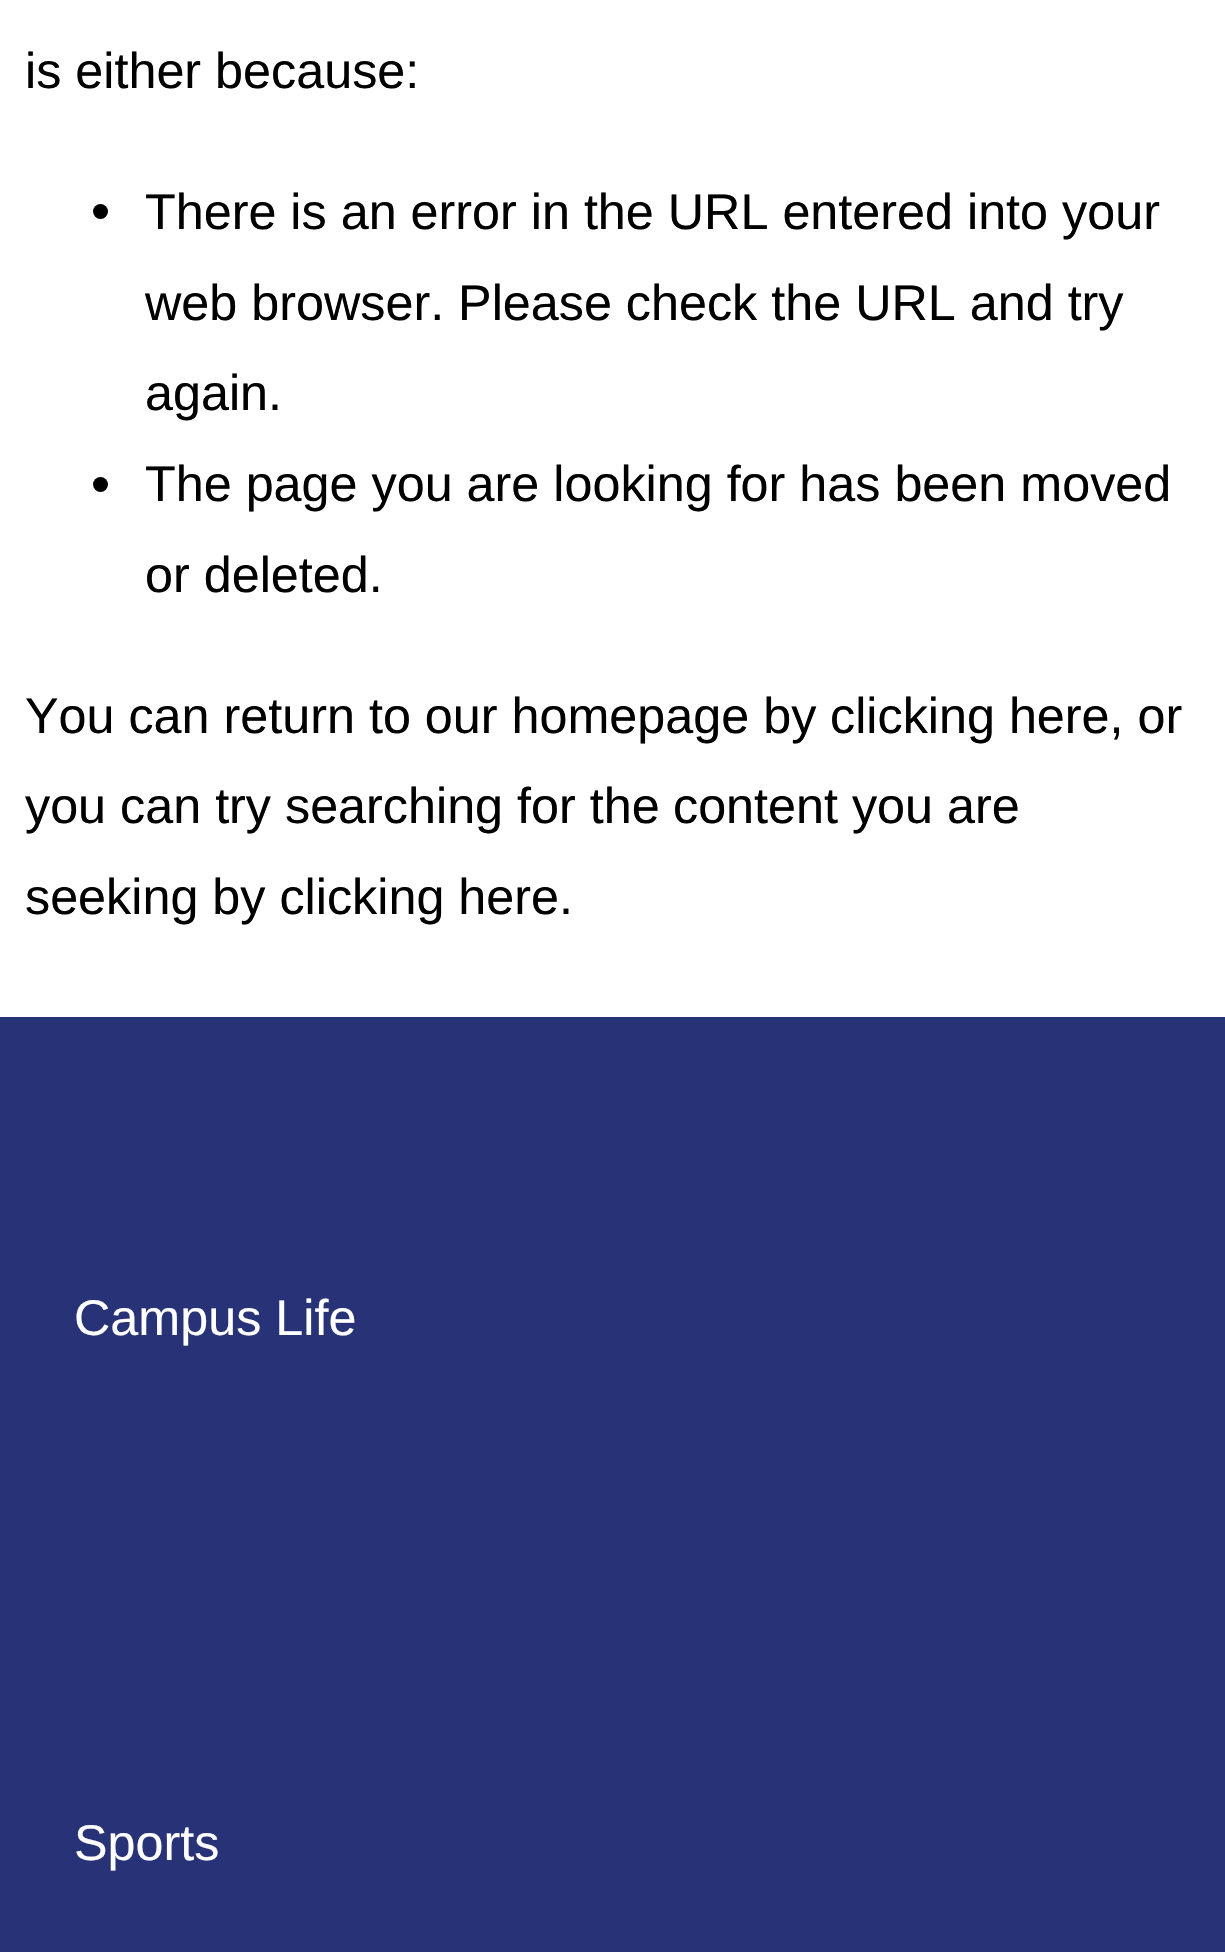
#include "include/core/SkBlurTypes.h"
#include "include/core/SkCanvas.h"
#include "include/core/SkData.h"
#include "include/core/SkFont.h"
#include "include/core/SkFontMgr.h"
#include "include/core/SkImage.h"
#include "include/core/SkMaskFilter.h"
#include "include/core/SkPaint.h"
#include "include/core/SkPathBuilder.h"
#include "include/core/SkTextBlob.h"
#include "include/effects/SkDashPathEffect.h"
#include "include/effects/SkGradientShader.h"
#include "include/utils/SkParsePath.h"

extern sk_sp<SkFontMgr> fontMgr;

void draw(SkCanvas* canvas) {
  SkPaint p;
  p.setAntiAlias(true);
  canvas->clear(SK_ColorWHITE);
  p.setColor(SK_ColorBLACK);
  canvas->drawCircle(100.5f, 211.5f, 7.5f, p);
  canvas->drawCircle(100.5f, 484.5f, 7.5f, p);
  p.setColor(SkColorSetRGB(40, 51, 119));
  canvas->drawRect(SkRect::MakeLTRB(0, 1017, 1225, 1952), p);
  SkFont font1(fontMgr->matchFamilyStyle("Liberation Sans", SkFontStyle::Normal()), 50.3f);
  font1.setSubpixel(true);
  p.setColor(SK_ColorBLACK);
  canvas->drawString("is either because:", 25, 88, font1, p);
  canvas->drawString("There is an error in the URL entered into your", 145, 229, font1, p);
  canvas->drawString("web browser. Please check the URL and try", 145, 320, font1, p);
  canvas->drawString("again.", 145, 410, font1, p);
  canvas->drawString("The page you are looking for has been moved", 145, 501, font1, p);
  canvas->drawString("or deleted.", 145, 592, font1, p);
  canvas->drawString("You can return to our homepage by", 25, 733, font1, p);
  canvas->drawString("clicking here, or", 830, 733, font1, p);
  canvas->drawString("you can try searching for the", 25, 823, font1, p);
  canvas->drawString("content you are", 673, 823, font1, p);
  canvas->drawString("seeking by clicking here.", 25, 914, font1, p);
  p.setColor(SK_ColorWHITE);
  canvas->drawString("Campus Life", 74, 1335, font1, p);
  canvas->drawString("Sports", 74, 1860, font1, p);
}
